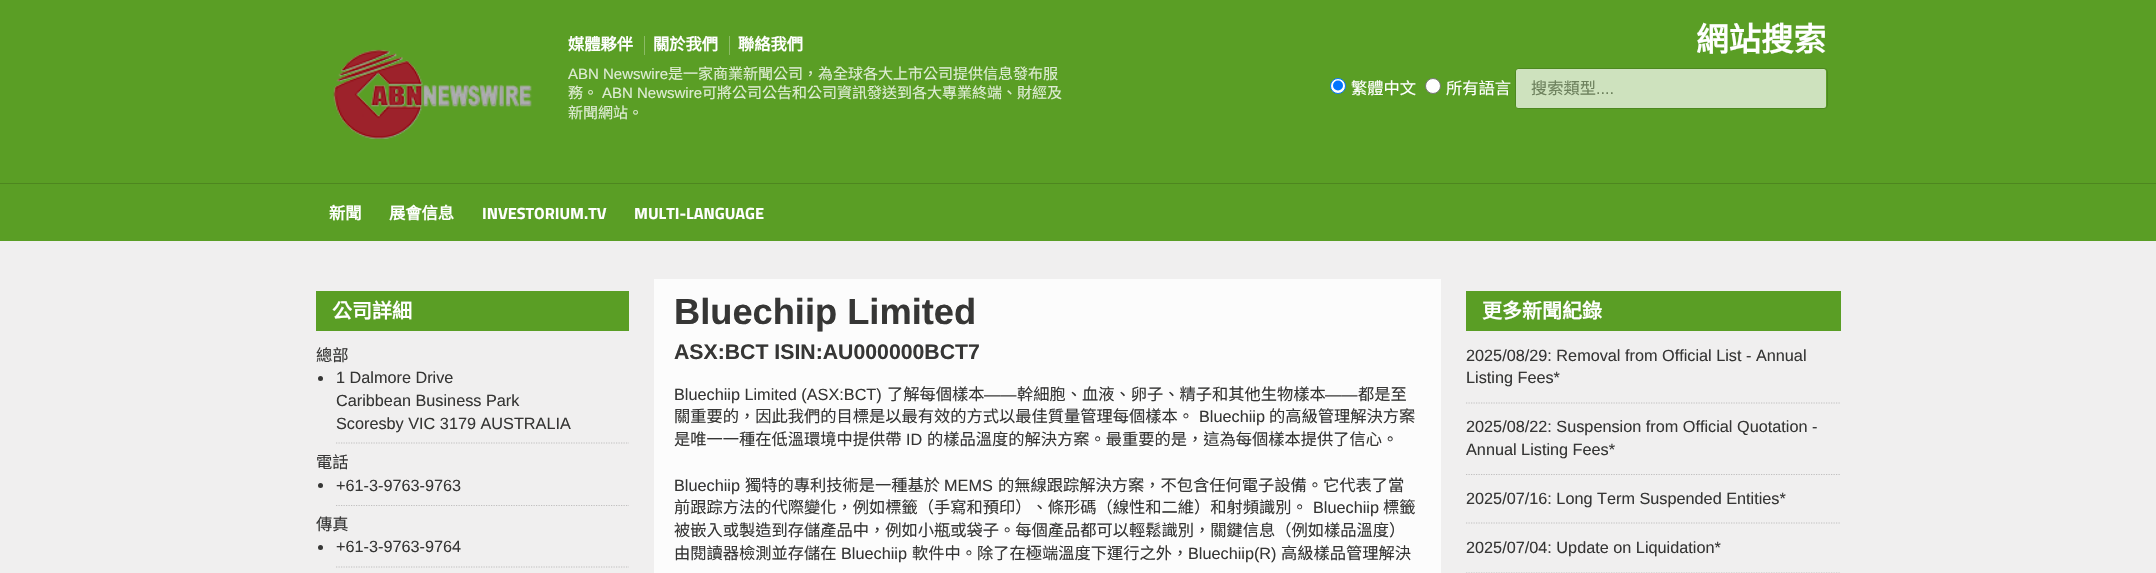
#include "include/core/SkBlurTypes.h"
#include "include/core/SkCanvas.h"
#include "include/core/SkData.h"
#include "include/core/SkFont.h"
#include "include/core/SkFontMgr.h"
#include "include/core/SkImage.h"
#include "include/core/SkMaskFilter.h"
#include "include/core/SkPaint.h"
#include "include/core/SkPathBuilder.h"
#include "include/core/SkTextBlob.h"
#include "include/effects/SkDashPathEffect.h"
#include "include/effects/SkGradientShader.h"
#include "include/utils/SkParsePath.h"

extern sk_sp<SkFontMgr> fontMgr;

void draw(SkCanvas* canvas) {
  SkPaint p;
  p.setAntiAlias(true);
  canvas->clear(SkColorSetRGB(240, 239, 239));
  p.setColor(SkColorSetRGB(90, 158, 37));
  canvas->drawRect(SkRect::MakeLTRB(0, 0, 2156, 241), p);
  canvas->drawImageRect(SkImages::DeferredFromEncodedData(SkData::MakeFromFileName("images/1.png")), SkRect::MakeLTRB(333, 49, 532, 139), SkSamplingOptions());
  p.setColor(SkColorSetRGB(140, 187, 102));
  canvas->drawRect(SkRect::MakeLTRB(644, 36, 645, 55), p);
  canvas->drawRect(SkRect::MakeLTRB(729, 36, 730, 55), p);
  p.setColor(SK_ColorWHITE);
  canvas->drawCircle(1338, 86, 7.5f, p);
  p.setStyle(SkPaint::kStroke_Style);
  p.setStrokeWidth(1);
  p.setColor(SkColorSetRGB(0, 117, 255));
  canvas->drawCircle(1338, 86, 7.5f, p);
  p.setStyle(SkPaint::kFill_Style);
  canvas->drawCircle(1338, 85.5f, 5, p);
  p.setColor(SK_ColorWHITE);
  canvas->drawCircle(1433, 86, 7.5f, p);
  p.setStyle(SkPaint::kStroke_Style);
  p.setColor(SkColorSetRGB(118, 118, 118));
  canvas->drawCircle(1433, 86, 7.5f, p);
  p.setColor(SkColorSetRGB(77, 136, 32));
  canvas->drawRoundRect(SkRect::MakeLTRB(1515.5f, 68.5f, 1827.5f, 108.5f), 3.5f, 3.5f, p);
  p.setStyle(SkPaint::kFill_Style);
  p.setColor(SkColorSetRGB(206, 226, 190));
  canvas->drawRoundRect(SkRect::MakeLTRB(1516, 69, 1826, 108), 2.5f, 2.5f, p);
  p.setColor(SkColorSetRGB(77, 134, 31));
  canvas->drawRect(SkRect::MakeLTRB(0, 183, 2156, 184), p);
  p.setColor(SkColorSetRGB(90, 158, 37));
  canvas->drawRect(SkRect::MakeLTRB(316, 291, 629, 331), p);
  p.setStyle(SkPaint::kStroke_Style);
  p.setStrokeWidth(1.2f);
  p.setColor(SkColorSetRGB(192, 191, 191));
  p.setPathEffect(SkDashPathEffect::Make({{1.25f, 1.25f}}, 0));
  canvas->drawPath(SkPathBuilder().moveTo(336, 443).lineTo(629, 443).detach(), p);
  p.setPathEffect(nullptr);
  p.setStyle(SkPaint::kFill_Style);
  p.setColor(SkColorSetRGB(54, 54, 53));
  canvas->drawCircle(320.5f, 378.5f, 2.5f, p);
  p.setStyle(SkPaint::kStroke_Style);
  p.setColor(SkColorSetRGB(192, 191, 191));
  p.setPathEffect(SkDashPathEffect::Make({{1.25f, 1.25f}}, 0));
  canvas->drawPath(SkPathBuilder().moveTo(336, 505.5f).lineTo(629, 505.5f).detach(), p);
  p.setPathEffect(nullptr);
  p.setStyle(SkPaint::kFill_Style);
  p.setColor(SkColorSetRGB(54, 54, 53));
  canvas->drawCircle(320.5f, 485.5f, 2.5f, p);
  p.setStyle(SkPaint::kStroke_Style);
  p.setColor(SkColorSetRGB(192, 191, 191));
  p.setPathEffect(SkDashPathEffect::Make({{1.25f, 1.25f}}, 0));
  canvas->drawPath(SkPathBuilder().moveTo(336, 567).lineTo(629, 567).detach(), p);
  p.setPathEffect(nullptr);
  p.setStyle(SkPaint::kFill_Style);
  p.setColor(SkColorSetRGB(54, 54, 53));
  canvas->drawCircle(320.5f, 547.5f, 2.5f, p);
  p.setColor(SkColorSetRGB(252, 252, 252));
  canvas->drawRect(SkRect::MakeLTRB(654, 279, 1441, 573), p);
  p.setColor(SkColorSetRGB(90, 158, 37));
  canvas->drawRect(SkRect::MakeLTRB(1466, 291, 1841, 331), p);
  p.setStyle(SkPaint::kStroke_Style);
  p.setColor(SkColorSetRGB(192, 191, 191));
  p.setPathEffect(SkDashPathEffect::Make({{1.25f, 1.25f}}, 0));
  canvas->drawPath(SkPathBuilder().moveTo(1466, 403).lineTo(1841, 403).detach(), p);
  p.setPathEffect(nullptr);
  p.setPathEffect(SkDashPathEffect::Make({{1.25f, 1.25f}}, 0));
  canvas->drawPath(SkPathBuilder().moveTo(1466, 474.5f).lineTo(1841, 474.5f).detach(), p);
  p.setPathEffect(nullptr);
  p.setPathEffect(SkDashPathEffect::Make({{1.25f, 1.25f}}, 0));
  canvas->drawPath(SkPathBuilder().moveTo(1466, 523).lineTo(1841, 523).detach(), p);
  p.setPathEffect(nullptr);
  p.setPathEffect(SkDashPathEffect::Make({{1.25f, 1.25f}}, 0));
  canvas->drawPath(SkPathBuilder().moveTo(1466, 573).lineTo(1841, 573).detach(), p);
  p.setPathEffect(nullptr);
  SkFont font1(fontMgr->matchFamilyStyle("Noto Sans CJK TC", SkFontStyle::Bold()), 16.25f);
  font1.setSubpixel(true);
  p.setStyle(SkPaint::kFill_Style);
  p.setColor(SK_ColorWHITE);
  canvas->drawString("媒體夥伴", 568, 50, font1, p);
  canvas->drawString("關於我們", 653, 50, font1, p);
  canvas->drawString("聯絡我們", 738, 50, font1, p);
  SkFont font2(fontMgr->matchFamilyStyle("Liberation Sans", SkFontStyle::Normal()), 15);
  font2.setSubpixel(true);
  p.setColor(SkColorSetRGB(222, 236, 211));
  canvas->drawString("ABN Newswire", 568, 79, font2, p);
  SkFont font3(fontMgr->matchFamilyStyle("Noto Sans CJK TC", SkFontStyle::Normal()), 15);
  font3.setSubpixel(true);
  canvas->drawString("是一家商業新聞公司，為全球各大上市公司提供信息發布服", 668, 79, font3, p);
  canvas->drawString("務。", 568, 98, font3, p);
  canvas->drawString("ABN Newswire", 602, 98, font2, p);
  canvas->drawString("可將公司公告和公司資訊發送到各大專業終端、財經及", 702, 98, font3, p);
  canvas->drawString("新聞網站。", 568, 118, font3, p);
  SkFont font4(fontMgr->matchFamilyStyle("Noto Sans CJK TC", SkFontStyle::Bold()), 32.5f);
  font4.setSubpixel(true);
  p.setColor(SK_ColorWHITE);
  canvas->drawString("網站搜索", 1696, 51, font4, p);
  SkFont font5(fontMgr->matchFamilyStyle("Noto Sans CJK TC", SkFontStyle::Normal()), 16.25f);
  font5.setSubpixel(true);
  canvas->drawString("繁體中文", 1351, 94, font5, p);
  canvas->drawString("所有語言", 1446, 94, font5, p);
  p.setColor(SkColorSetRGB(109, 129, 93));
  canvas->drawString("搜索類型", 1531, 94, font5, p);
  SkFont font6(fontMgr->matchFamilyStyle("Liberation Sans", SkFontStyle::Normal()), 16.25f);
  font6.setSubpixel(true);
  canvas->drawString("....", 1596, 94, font6, p);
  p.setColor(SK_ColorWHITE);
  canvas->drawString("新聞", 329, 219, font1, p);
  canvas->drawString("展會信息", 389, 219, font1, p);
  SkFont font7(fontMgr->matchFamilyStyle("Titillium Web", SkFontStyle::Bold()), 16.25f);
  font7.setSubpixel(true);
  canvas->drawString("INVESTORIUM.TV", 482, 219, font7, p);
  canvas->drawString("MULTI-LANGUAGE", 634, 219, font7, p);
  SkFont font8(fontMgr->matchFamilyStyle("Noto Sans CJK TC", SkFontStyle::Bold()), 20);
  font8.setSubpixel(true);
  canvas->drawString("公司詳細", 332, 318, font8, p);
  p.setColor(SkColorSetRGB(54, 54, 53));
  canvas->drawString("總部", 316, 361, font5, p);
  canvas->drawString("1 Dalmore Drive", 336, 383, font6, p);
  canvas->drawString("Caribbean Business Park", 336, 406, font6, p);
  canvas->drawString("Scoresby VIC 3179 AUSTRALIA", 336, 429, font6, p);
  canvas->drawString("電話", 316, 468, font5, p);
  canvas->drawString("+61-3-9763-9763", 336, 491, font6, p);
  canvas->drawString("傳真", 316, 530, font5, p);
  canvas->drawString("+61-3-9763-9764", 336, 552, font6, p);
  SkFont font9(fontMgr->matchFamilyStyle("Liberation Sans", SkFontStyle::Bold()), 36.25f);
  font9.setSubpixel(true);
  canvas->drawString("Bluechiip Limited", 674, 324, font9, p);
  SkFont font10(fontMgr->matchFamilyStyle("Liberation Sans", SkFontStyle::Bold()), 21.25f);
  font10.setSubpixel(true);
  canvas->drawString("ASX:BCT ISIN:AU000000BCT7", 674, 359, font10, p);
  canvas->drawString("Bluechiip Limited (ASX:BCT)", 674, 400, font6, p);
  canvas->drawString("了解每個樣本", 887, 400, font5, p);
  canvas->drawString("——", 984, 400, font6, p);
  canvas->drawString("幹細胞、血液、卵子、精子和其他生物樣本", 1017, 400, font5, p);
  canvas->drawString("——", 1325, 400, font6, p);
  canvas->drawString("都是至", 1358, 400, font5, p);
  canvas->drawString("關重要的，因此我們的目標是以最有效的方式以最佳質量管理每個樣本。", 674, 422, font5, p);
  canvas->drawString("Bluechiip", 1199, 422, font6, p);
  canvas->drawString("的高級管理解決方案", 1269, 422, font5, p);
  canvas->drawString("是唯一一種在低溫環境中提供帶", 674, 445, font5, p);
  canvas->drawString("ID", 906, 445, font6, p);
  canvas->drawString("的樣品溫度的解決方案。最重要的是，這為每個樣本提供了信心。", 927, 445, font5, p);
  canvas->drawString("Bluechiip", 674, 491, font6, p);
  canvas->drawString("獨特的專利技術是一種基於", 745, 491, font5, p);
  canvas->drawString("MEMS", 944, 491, font6, p);
  canvas->drawString("的無線跟踪解決方案，不包含任何電子設備。它代表了當", 998, 491, font5, p);
  canvas->drawString("前跟踪方法的代際變化，例如標籤（手寫和預印）、條形碼（線性和二維）和射頻識別。", 674, 513, font5, p);
  canvas->drawString("Bluechiip", 1313, 513, font6, p);
  canvas->drawString("標籤", 1383, 513, font5, p);
  canvas->drawString("被嵌入或製造到存儲產品中，例如小瓶或袋子。每個產品都可以輕鬆識別，關鍵信息（例如樣品溫度）", 674, 536, font5, p);
  canvas->drawString("由閱讀器檢測並存儲在", 674, 559, font5, p);
  canvas->drawString("Bluechiip", 841, 559, font6, p);
  canvas->drawString("軟件中。除了在極端溫度下運行之外，", 912, 559, font5, p);
  canvas->drawString("Bluechiip(R)", 1188, 559, font6, p);
  canvas->drawString("高級樣品管理解決", 1281, 559, font5, p);
  p.setColor(SK_ColorWHITE);
  canvas->drawString("更多新聞紀錄", 1482, 318, font8, p);
  p.setColor(SkColorSetRGB(54, 54, 53));
  canvas->drawString("2025/08/29: Removal from Official List - Annual", 1466, 361, font6, p);
  canvas->drawString("Listing Fees*", 1466, 383, font6, p);
  canvas->drawString("2025/08/22: Suspension from Official Quotation -", 1466, 432, font6, p);
  canvas->drawString("Annual Listing Fees*", 1466, 455, font6, p);
  canvas->drawString("2025/07/16: Long Term Suspended Entities*", 1466, 504, font6, p);
  canvas->drawString("2025/07/04: Update on Liquidation*", 1466, 553, font6, p);
}
